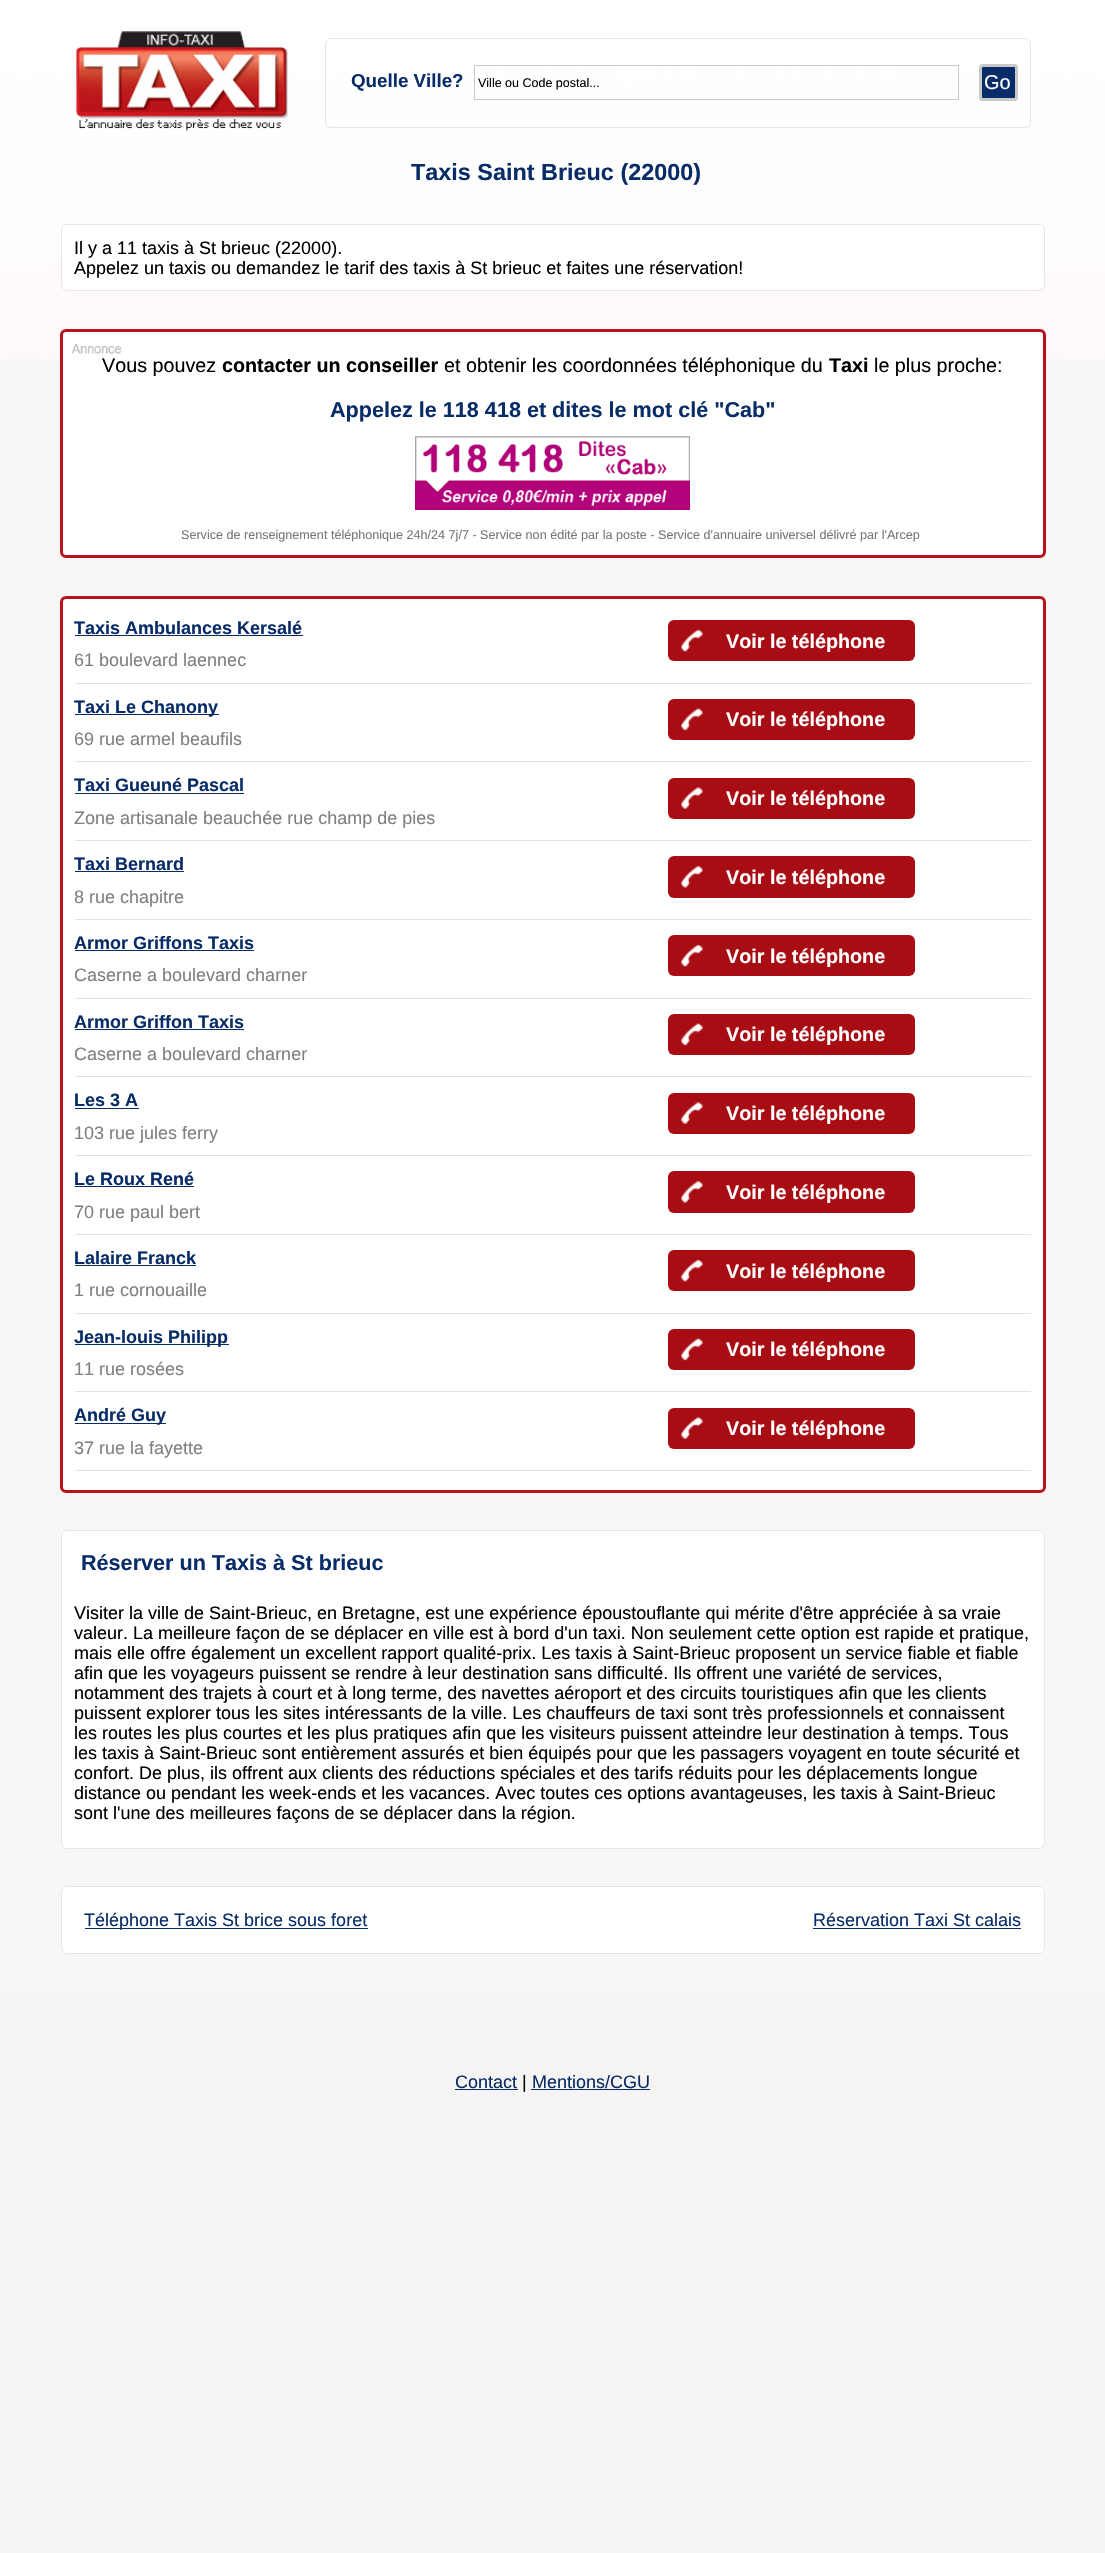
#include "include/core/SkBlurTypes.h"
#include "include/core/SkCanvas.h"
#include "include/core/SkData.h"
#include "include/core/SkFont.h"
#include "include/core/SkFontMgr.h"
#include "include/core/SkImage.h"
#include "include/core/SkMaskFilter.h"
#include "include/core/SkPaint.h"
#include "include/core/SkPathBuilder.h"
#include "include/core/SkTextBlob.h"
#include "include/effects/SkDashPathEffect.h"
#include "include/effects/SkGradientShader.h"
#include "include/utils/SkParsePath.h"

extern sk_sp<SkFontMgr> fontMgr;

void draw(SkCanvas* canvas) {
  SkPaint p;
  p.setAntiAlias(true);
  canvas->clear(SkColorSetRGB(246, 243, 243));
  p.setColor(SkColorSetRGB(249, 246, 246));
  canvas->drawRect(SkRect::MakeLTRB(0, 359, 1105, 1991), p);
  canvas->drawImageRect(SkImages::DeferredFromEncodedData(SkData::MakeFromFileName("images/1.png")), SkRect::MakeLTRB(0, 0, 1105, 359), SkSamplingOptions());
  canvas->drawImageRect(SkImages::DeferredFromEncodedData(SkData::MakeFromFileName("images/2.png")), SkRect::MakeLTRB(76, 31, 288, 131), SkSamplingOptions());
  p.setStyle(SkPaint::kStroke_Style);
  p.setStrokeWidth(1);
  p.setColor(SkColorSetRGB(230, 230, 230));
  canvas->drawRoundRect(SkRect::MakeLTRB(325.5f, 38.5f, 1030.5f, 127.5f), 5.5f, 5.5f, p);
  p.setColor(SkColorSetRGB(201, 201, 201));
  canvas->drawRect(SkRect::MakeLTRB(474.5f, 65.5f, 958.5f, 99.5f), p);
  p.setStyle(SkPaint::kFill_Style);
  p.setColor(SkColorSetRGB(8, 44, 103));
  canvas->drawRoundRect(SkRect::MakeLTRB(980.5f, 65.5f, 1016.5f, 99.5f), 2.5f, 2.5f, p);
  p.setStyle(SkPaint::kStroke_Style);
  p.setStrokeWidth(3);
  p.setColor(SkColorSetRGB(201, 201, 201));
  canvas->drawRoundRect(SkRect::MakeLTRB(980.5f, 65.5f, 1016.5f, 99.5f), 2.5f, 2.5f, p);
  p.setStyle(SkPaint::kFill_Style);
  p.setColor(SK_ColorWHITE);
  canvas->drawRoundRect(SkRect::MakeLTRB(61.5f, 224.5f, 1044.5f, 290.5f), 5.5f, 5.5f, p);
  p.setStyle(SkPaint::kStroke_Style);
  p.setStrokeWidth(1);
  p.setColor(SkColorSetRGB(230, 230, 230));
  canvas->drawRoundRect(SkRect::MakeLTRB(61.5f, 224.5f, 1044.5f, 290.5f), 5.5f, 5.5f, p);
  p.setStyle(SkPaint::kFill_Style);
  p.setColor(SK_ColorWHITE);
  canvas->drawRoundRect(SkRect::MakeLTRB(61.5f, 330.5f, 1044.5f, 556.5f), 4.5f, 4.5f, p);
  p.setStyle(SkPaint::kStroke_Style);
  p.setStrokeWidth(3);
  p.setColor(SkColorSetRGB(185, 19, 26));
  canvas->drawRoundRect(SkRect::MakeLTRB(61.5f, 330.5f, 1044.5f, 556.5f), 4.5f, 4.5f, p);
  canvas->drawImageRect(SkImages::DeferredFromEncodedData(SkData::MakeFromFileName("images/3.png")), SkRect::MakeLTRB(71, 343, 122, 354), SkSamplingOptions());
  canvas->drawImageRect(SkImages::DeferredFromEncodedData(SkData::MakeFromFileName("images/4.png")), SkRect::MakeLTRB(415, 436, 690, 510), SkSamplingOptions());
  p.setStyle(SkPaint::kFill_Style);
  p.setColor(SK_ColorWHITE);
  canvas->drawRoundRect(SkRect::MakeLTRB(61.5f, 597.5f, 1044.5f, 1491.5f), 4.5f, 4.5f, p);
  p.setStyle(SkPaint::kStroke_Style);
  p.setColor(SkColorSetRGB(185, 19, 26));
  canvas->drawRoundRect(SkRect::MakeLTRB(61.5f, 597.5f, 1044.5f, 1491.5f), 4.5f, 4.5f, p);
  p.setStyle(SkPaint::kFill_Style);
  p.setColor(SkColorSetRGB(225, 225, 225));
  canvas->drawRect(SkRect::MakeLTRB(75, 683, 1031, 684), p);
  p.setColor(SkColorSetRGB(8, 44, 103));
  canvas->drawRect(SkRect::MakeLTRB(75, 635, 303, 636), p);
  p.setColor(SkColorSetRGB(169, 13, 20));
  canvas->drawRoundRect(SkRect::MakeLTRB(668, 620, 915, 661), 6, 6, p);
  canvas->drawImageRect(SkImages::DeferredFromEncodedData(SkData::MakeFromFileName("images/5.png")), SkRect::MakeLTRB(681, 629, 703, 652), SkSamplingOptions());
  p.setColor(SkColorSetRGB(225, 225, 225));
  canvas->drawRect(SkRect::MakeLTRB(75, 761, 1031, 762), p);
  p.setColor(SkColorSetRGB(8, 44, 103));
  canvas->drawRect(SkRect::MakeLTRB(75, 714, 219, 715), p);
  p.setColor(SkColorSetRGB(169, 13, 20));
  canvas->drawRoundRect(SkRect::MakeLTRB(668, 699, 915, 740), 6, 6, p);
  canvas->drawImageRect(SkImages::DeferredFromEncodedData(SkData::MakeFromFileName("images/6.png")), SkRect::MakeLTRB(681, 708, 703, 731), SkSamplingOptions());
  p.setColor(SkColorSetRGB(225, 225, 225));
  canvas->drawRect(SkRect::MakeLTRB(75, 840, 1031, 841), p);
  p.setColor(SkColorSetRGB(8, 44, 103));
  canvas->drawRect(SkRect::MakeLTRB(75, 793, 244, 794), p);
  p.setColor(SkColorSetRGB(169, 13, 20));
  canvas->drawRoundRect(SkRect::MakeLTRB(668, 778, 915, 819), 6, 6, p);
  canvas->drawImageRect(SkImages::DeferredFromEncodedData(SkData::MakeFromFileName("images/7.png")), SkRect::MakeLTRB(681, 787, 703, 809), SkSamplingOptions());
  p.setColor(SkColorSetRGB(225, 225, 225));
  canvas->drawRect(SkRect::MakeLTRB(75, 919, 1031, 920), p);
  p.setColor(SkColorSetRGB(8, 44, 103));
  canvas->drawRect(SkRect::MakeLTRB(75, 871, 184, 872), p);
  p.setColor(SkColorSetRGB(169, 13, 20));
  canvas->drawRoundRect(SkRect::MakeLTRB(668, 856, 915, 898), 6, 6, p);
  canvas->drawImageRect(SkImages::DeferredFromEncodedData(SkData::MakeFromFileName("images/8.png")), SkRect::MakeLTRB(681, 866, 703, 888), SkSamplingOptions());
  p.setColor(SkColorSetRGB(225, 225, 225));
  canvas->drawRect(SkRect::MakeLTRB(75, 998, 1031, 999), p);
  p.setColor(SkColorSetRGB(8, 44, 103));
  canvas->drawRect(SkRect::MakeLTRB(75, 950, 254, 951), p);
  p.setColor(SkColorSetRGB(169, 13, 20));
  canvas->drawRoundRect(SkRect::MakeLTRB(668, 935, 915, 976), 6, 6, p);
  canvas->drawImageRect(SkImages::DeferredFromEncodedData(SkData::MakeFromFileName("images/5.png")), SkRect::MakeLTRB(681, 944, 703, 967), SkSamplingOptions());
  p.setColor(SkColorSetRGB(225, 225, 225));
  canvas->drawRect(SkRect::MakeLTRB(75, 1076, 1031, 1077), p);
  p.setColor(SkColorSetRGB(8, 44, 103));
  canvas->drawRect(SkRect::MakeLTRB(75, 1029, 244, 1030), p);
  p.setColor(SkColorSetRGB(169, 13, 20));
  canvas->drawRoundRect(SkRect::MakeLTRB(668, 1014, 915, 1055), 6, 6, p);
  canvas->drawImageRect(SkImages::DeferredFromEncodedData(SkData::MakeFromFileName("images/6.png")), SkRect::MakeLTRB(681, 1023, 703, 1046), SkSamplingOptions());
  p.setColor(SkColorSetRGB(225, 225, 225));
  canvas->drawRect(SkRect::MakeLTRB(75, 1155, 1031, 1156), p);
  p.setColor(SkColorSetRGB(8, 44, 103));
  canvas->drawRect(SkRect::MakeLTRB(75, 1108, 139, 1109), p);
  p.setColor(SkColorSetRGB(169, 13, 20));
  canvas->drawRoundRect(SkRect::MakeLTRB(668, 1093, 915, 1134), 6, 6, p);
  canvas->drawImageRect(SkImages::DeferredFromEncodedData(SkData::MakeFromFileName("images/9.png")), SkRect::MakeLTRB(681, 1102, 703, 1124), SkSamplingOptions());
  p.setColor(SkColorSetRGB(225, 225, 225));
  canvas->drawRect(SkRect::MakeLTRB(75, 1234, 1031, 1235), p);
  p.setColor(SkColorSetRGB(8, 44, 103));
  canvas->drawRect(SkRect::MakeLTRB(75, 1186, 194, 1187), p);
  p.setColor(SkColorSetRGB(169, 13, 20));
  canvas->drawRoundRect(SkRect::MakeLTRB(668, 1171, 915, 1213), 6, 6, p);
  canvas->drawImageRect(SkImages::DeferredFromEncodedData(SkData::MakeFromFileName("images/10.png")), SkRect::MakeLTRB(681, 1181, 703, 1203), SkSamplingOptions());
  p.setColor(SkColorSetRGB(225, 225, 225));
  canvas->drawRect(SkRect::MakeLTRB(75, 1313, 1031, 1314), p);
  p.setColor(SkColorSetRGB(8, 44, 103));
  canvas->drawRect(SkRect::MakeLTRB(75, 1265, 196, 1266), p);
  p.setColor(SkColorSetRGB(169, 13, 20));
  canvas->drawRoundRect(SkRect::MakeLTRB(668, 1250, 915, 1291), 6, 6, p);
  canvas->drawImageRect(SkImages::DeferredFromEncodedData(SkData::MakeFromFileName("images/5.png")), SkRect::MakeLTRB(681, 1259, 703, 1282), SkSamplingOptions());
  p.setColor(SkColorSetRGB(225, 225, 225));
  canvas->drawRect(SkRect::MakeLTRB(75, 1391, 1031, 1392), p);
  p.setColor(SkColorSetRGB(8, 44, 103));
  canvas->drawRect(SkRect::MakeLTRB(75, 1344, 229, 1345), p);
  p.setColor(SkColorSetRGB(169, 13, 20));
  canvas->drawRoundRect(SkRect::MakeLTRB(668, 1329, 915, 1370), 6, 6, p);
  canvas->drawImageRect(SkImages::DeferredFromEncodedData(SkData::MakeFromFileName("images/6.png")), SkRect::MakeLTRB(681, 1338, 703, 1361), SkSamplingOptions());
  p.setColor(SkColorSetRGB(225, 225, 225));
  canvas->drawRect(SkRect::MakeLTRB(75, 1470, 1031, 1471), p);
  p.setColor(SkColorSetRGB(8, 44, 103));
  canvas->drawRect(SkRect::MakeLTRB(75, 1423, 166, 1424), p);
  p.setColor(SkColorSetRGB(169, 13, 20));
  canvas->drawRoundRect(SkRect::MakeLTRB(668, 1408, 915, 1449), 6, 6, p);
  canvas->drawImageRect(SkImages::DeferredFromEncodedData(SkData::MakeFromFileName("images/9.png")), SkRect::MakeLTRB(681, 1417, 703, 1439), SkSamplingOptions());
  p.setColor(SK_ColorWHITE);
  canvas->drawRoundRect(SkRect::MakeLTRB(61.5f, 1530.5f, 1044.5f, 1848.5f), 5.5f, 5.5f, p);
  p.setStyle(SkPaint::kStroke_Style);
  p.setStrokeWidth(1);
  p.setColor(SkColorSetRGB(230, 230, 230));
  canvas->drawRoundRect(SkRect::MakeLTRB(61.5f, 1530.5f, 1044.5f, 1848.5f), 5.5f, 5.5f, p);
  p.setStyle(SkPaint::kFill_Style);
  p.setColor(SK_ColorWHITE);
  canvas->drawRoundRect(SkRect::MakeLTRB(61.5f, 1886.5f, 1044.5f, 1953.5f), 5.5f, 5.5f, p);
  p.setStyle(SkPaint::kStroke_Style);
  p.setColor(SkColorSetRGB(230, 230, 230));
  canvas->drawRoundRect(SkRect::MakeLTRB(61.5f, 1886.5f, 1044.5f, 1953.5f), 5.5f, 5.5f, p);
  p.setStyle(SkPaint::kFill_Style);
  p.setColor(SkColorSetRGB(8, 44, 103));
  canvas->drawRect(SkRect::MakeLTRB(85, 1928, 368, 1929), p);
  canvas->drawRect(SkRect::MakeLTRB(813, 1928, 1021, 1929), p);
  canvas->drawRect(SkRect::MakeLTRB(455, 2089, 518, 2090), p);
  canvas->drawRect(SkRect::MakeLTRB(531, 2089, 650, 2090), p);
  SkFont font1(fontMgr->matchFamilyStyle("Liberation Sans", SkFontStyle::Bold()), 18.75f);
  font1.setSubpixel(true);
  canvas->drawString("Quelle Ville?", 351, 87, font1, p);
  SkFont font2(fontMgr->matchFamilyStyle("Liberation Sans", SkFontStyle::Normal()), 12.5f);
  font2.setSubpixel(true);
  p.setColor(SK_ColorBLACK);
  canvas->drawString("Ville ou Code postal...", 478, 87, font2, p);
  SkFont font3(fontMgr->matchFamilyStyle("Liberation Sans", SkFontStyle::Normal()), 20);
  font3.setSubpixel(true);
  p.setColor(SK_ColorWHITE);
  canvas->drawString("Go", 984, 89, font3, p);
  SkFont font4(fontMgr->matchFamilyStyle("Liberation Sans", SkFontStyle::Bold()), 23.4f);
  font4.setSubpixel(true);
  p.setColor(SkColorSetRGB(8, 44, 103));
  canvas->drawString("Taxis Saint Brieuc (22000)", 411, 180, font4, p);
  SkFont font5(fontMgr->matchFamilyStyle("Liberation Sans", SkFontStyle::Normal()), 18);
  font5.setSubpixel(true);
  p.setColor(SK_ColorBLACK);
  canvas->drawString("Il y a 11 taxis à St brieuc (22000).", 74, 254, font5, p);
  canvas->drawString("Appelez un taxis ou demandez le tarif des taxis à St brieuc et faites une réservation!", 74, 274, font5, p);
  SkFont font6(fontMgr->matchFamilyStyle("Liberation Sans", SkFontStyle::Normal()), 19.75f);
  font6.setSubpixel(true);
  canvas->drawString("Vous pouvez", 102, 372, font6, p);
  SkFont font7(fontMgr->matchFamilyStyle("Liberation Sans", SkFontStyle::Bold()), 19.75f);
  font7.setSubpixel(true);
  canvas->drawString("contacter un conseiller", 222, 372, font7, p);
  canvas->drawString("et obtenir les coordonnées téléphonique du", 444, 372, font6, p);
  canvas->drawString("Taxi", 829, 372, font7, p);
  canvas->drawString("le plus proche:", 874, 372, font6, p);
  SkFont font8(fontMgr->matchFamilyStyle("Liberation Sans", SkFontStyle::Bold()), 21.6f);
  font8.setSubpixel(true);
  p.setColor(SkColorSetRGB(8, 44, 103));
  canvas->drawString("Appelez le 118 418 et dites le mot clé \"Cab\"", 330, 417, font8, p);
  SkFont font9(fontMgr->matchFamilyStyle("Liberation Sans", SkFontStyle::Normal()), 12.6f);
  font9.setSubpixel(true);
  p.setColor(SkColorSetRGB(119, 119, 119));
  canvas->drawString("Service de renseignement téléphonique 24h/24 7j/7 - Service non édité par la poste - Service d'annuaire universel délivré par l'Arcep", 181, 539, font9, p);
  SkFont font10(fontMgr->matchFamilyStyle("Liberation Sans", SkFontStyle::Bold()), 18);
  font10.setSubpixel(true);
  p.setColor(SkColorSetRGB(8, 44, 103));
  canvas->drawString("Taxis Ambulances Kersalé", 74, 634, font10, p);
  p.setColor(SkColorSetRGB(128, 128, 128));
  canvas->drawString("61 boulevard laennec", 74, 666, font5, p);
  p.setColor(SK_ColorWHITE);
  canvas->drawString("Voir le téléphone", 726, 648, font7, p);
  p.setColor(SkColorSetRGB(8, 44, 103));
  canvas->drawString("Taxi Le Chanony", 74, 713, font10, p);
  p.setColor(SkColorSetRGB(128, 128, 128));
  canvas->drawString("69 rue armel beaufils", 74, 745, font5, p);
  p.setColor(SK_ColorWHITE);
  canvas->drawString("Voir le téléphone", 726, 726, font7, p);
  p.setColor(SkColorSetRGB(8, 44, 103));
  canvas->drawString("Taxi Gueuné Pascal", 74, 791, font10, p);
  p.setColor(SkColorSetRGB(128, 128, 128));
  canvas->drawString("Zone artisanale beauchée rue champ de pies", 74, 824, font5, p);
  p.setColor(SK_ColorWHITE);
  canvas->drawString("Voir le téléphone", 726, 805, font7, p);
  p.setColor(SkColorSetRGB(8, 44, 103));
  canvas->drawString("Taxi Bernard", 74, 870, font10, p);
  p.setColor(SkColorSetRGB(128, 128, 128));
  canvas->drawString("8 rue chapitre", 74, 903, font5, p);
  p.setColor(SK_ColorWHITE);
  canvas->drawString("Voir le téléphone", 726, 884, font7, p);
  p.setColor(SkColorSetRGB(8, 44, 103));
  canvas->drawString("Armor Griffons Taxis", 74, 949, font10, p);
  p.setColor(SkColorSetRGB(128, 128, 128));
  canvas->drawString("Caserne a boulevard charner", 74, 981, font5, p);
  p.setColor(SK_ColorWHITE);
  canvas->drawString("Voir le téléphone", 726, 963, font7, p);
  p.setColor(SkColorSetRGB(8, 44, 103));
  canvas->drawString("Armor Griffon Taxis", 74, 1028, font10, p);
  p.setColor(SkColorSetRGB(128, 128, 128));
  canvas->drawString("Caserne a boulevard charner", 74, 1060, font5, p);
  p.setColor(SK_ColorWHITE);
  canvas->drawString("Voir le téléphone", 726, 1041, font7, p);
  p.setColor(SkColorSetRGB(8, 44, 103));
  canvas->drawString("Les 3 A", 74, 1106, font10, p);
  p.setColor(SkColorSetRGB(128, 128, 128));
  canvas->drawString("103 rue jules ferry", 74, 1139, font5, p);
  p.setColor(SK_ColorWHITE);
  canvas->drawString("Voir le téléphone", 726, 1120, font7, p);
  p.setColor(SkColorSetRGB(8, 44, 103));
  canvas->drawString("Le Roux René", 74, 1185, font10, p);
  p.setColor(SkColorSetRGB(128, 128, 128));
  canvas->drawString("70 rue paul bert", 74, 1218, font5, p);
  p.setColor(SK_ColorWHITE);
  canvas->drawString("Voir le téléphone", 726, 1199, font7, p);
  p.setColor(SkColorSetRGB(8, 44, 103));
  canvas->drawString("Lalaire Franck", 74, 1264, font10, p);
  p.setColor(SkColorSetRGB(128, 128, 128));
  canvas->drawString("1 rue cornouaille", 74, 1296, font5, p);
  p.setColor(SK_ColorWHITE);
  canvas->drawString("Voir le téléphone", 726, 1278, font7, p);
  p.setColor(SkColorSetRGB(8, 44, 103));
  canvas->drawString("Jean-louis Philipp", 74, 1343, font10, p);
  p.setColor(SkColorSetRGB(128, 128, 128));
  canvas->drawString("11 rue rosées", 74, 1375, font5, p);
  p.setColor(SK_ColorWHITE);
  canvas->drawString("Voir le téléphone", 726, 1356, font7, p);
  p.setColor(SkColorSetRGB(8, 44, 103));
  canvas->drawString("André Guy", 74, 1421, font10, p);
  p.setColor(SkColorSetRGB(128, 128, 128));
  canvas->drawString("37 rue la fayette", 74, 1454, font5, p);
  p.setColor(SK_ColorWHITE);
  canvas->drawString("Voir le téléphone", 726, 1435, font7, p);
  p.setColor(SkColorSetRGB(8, 44, 103));
  canvas->drawString("Réserver un Taxis à St brieuc", 81, 1570, font8, p);
  p.setColor(SK_ColorBLACK);
  canvas->drawString("Visiter la ville de Saint-Brieuc, en Bretagne, est une expérience époustouflante qui mérite d'être appréciée à sa vraie", 74, 1619, font5, p);
  canvas->drawString("valeur. La meilleure façon de se déplacer en ville est à bord d'un taxi. Non seulement cette option est rapide et pratique,", 74, 1639, font5, p);
  canvas->drawString("mais elle offre également un excellent rapport qualité-prix. Les taxis à Saint-Brieuc proposent un service fiable et fiable", 74, 1659, font5, p);
  canvas->drawString("afin que les voyageurs puissent se rendre à leur destination sans difficulté. Ils offrent une variété de services,", 74, 1679, font5, p);
  canvas->drawString("notamment des trajets à court et à long terme, des navettes aéroport et des circuits touristiques afin que les clients", 74, 1699, font5, p);
  canvas->drawString("puissent explorer tous les sites intéressants de la ville. Les chauffeurs de taxi sont très professionnels et connaissent", 74, 1719, font5, p);
  canvas->drawString("les routes les plus courtes et les plus pratiques afin que les visiteurs puissent atteindre leur destination à temps. Tous", 74, 1739, font5, p);
  canvas->drawString("les taxis à Saint-Brieuc sont entièrement assurés et bien équipés pour que les passagers voyagent en toute sécurité et", 74, 1759, font5, p);
  canvas->drawString("confort. De plus, ils offrent aux clients des réductions spéciales et des tarifs réduits pour les déplacements longue", 74, 1779, font5, p);
  canvas->drawString("distance ou pendant les week-ends et les vacances. Avec toutes ces options avantageuses, les taxis à Saint-Brieuc", 74, 1799, font5, p);
  canvas->drawString("sont l'une des meilleures façons de se déplacer dans la région.", 74, 1819, font5, p);
  p.setColor(SkColorSetRGB(8, 44, 103));
  canvas->drawString("Téléphone Taxis St brice sous foret", 84, 1926, font5, p);
  canvas->drawString("Réservation Taxi St calais", 813, 1926, font5, p);
  canvas->drawString("Contact", 455, 2088, font5, p);
  p.setColor(SK_ColorBLACK);
  canvas->drawString("|", 522, 2088, font5, p);
  p.setColor(SkColorSetRGB(8, 44, 103));
  canvas->drawString("Mentions/CGU", 532, 2088, font5, p);
}
